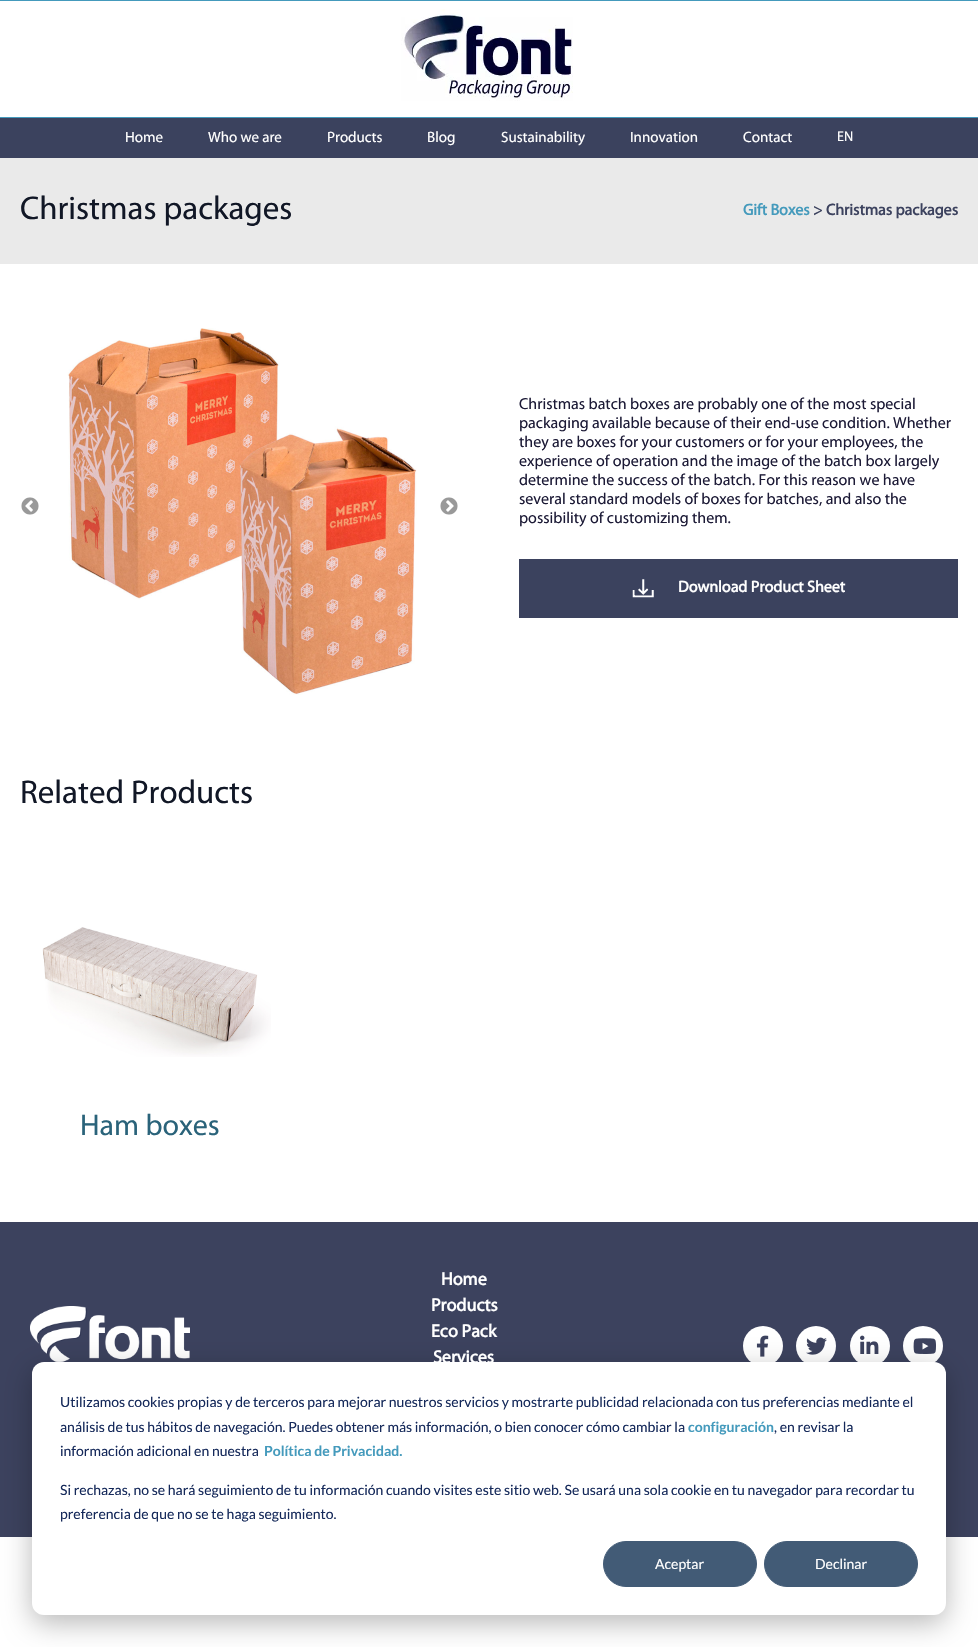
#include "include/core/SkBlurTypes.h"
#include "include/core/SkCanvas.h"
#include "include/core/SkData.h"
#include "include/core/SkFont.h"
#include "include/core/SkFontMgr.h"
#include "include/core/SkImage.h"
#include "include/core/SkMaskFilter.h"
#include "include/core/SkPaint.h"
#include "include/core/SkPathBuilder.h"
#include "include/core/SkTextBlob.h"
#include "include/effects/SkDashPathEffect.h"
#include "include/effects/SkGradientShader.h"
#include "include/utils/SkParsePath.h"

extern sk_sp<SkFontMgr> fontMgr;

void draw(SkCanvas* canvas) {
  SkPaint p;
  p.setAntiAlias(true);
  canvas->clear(SK_ColorWHITE);
  p.setColor(SkColorSetRGB(68, 154, 188));
  canvas->drawRect(SkRect::MakeLTRB(0, 0, 978, 1), p);
  canvas->drawRect(SkRect::MakeLTRB(0, 117, 978, 118), p);
  canvas->drawImageRect(SkImages::DeferredFromEncodedData(SkData::MakeFromFileName("images/1.png")), SkRect::MakeLTRB(401, 9, 573, 101), SkSamplingOptions());
  p.setColor(SkColorSetRGB(59, 66, 94));
  canvas->drawRect(SkRect::MakeLTRB(0, 118, 978, 158), p);
  p.setColor(SkColorSetRGB(234, 234, 234));
  canvas->drawRect(SkRect::MakeLTRB(0, 158, 978, 264), p);
  canvas->drawImageRect(SkImages::DeferredFromEncodedData(SkData::MakeFromFileName("images/2.png")), SkRect::MakeLTRB(21, 497, 39, 515), SkSamplingOptions());
  canvas->drawImageRect(SkImages::DeferredFromEncodedData(SkData::MakeFromFileName("images/3.png")), SkRect::MakeLTRB(67, 328, 417, 695), SkSamplingOptions());
  canvas->drawImageRect(SkImages::DeferredFromEncodedData(SkData::MakeFromFileName("images/4.png")), SkRect::MakeLTRB(440, 497, 458, 515), SkSamplingOptions());
  p.setColor(SkColorSetRGB(59, 66, 94));
  canvas->drawRect(SkRect::MakeLTRB(519, 559, 958, 618), p);
  canvas->drawImageRect(SkImages::DeferredFromEncodedData(SkData::MakeFromFileName("images/5.png")), SkRect::MakeLTRB(632, 579, 654, 598), SkSamplingOptions());
  canvas->drawImageRect(SkImages::DeferredFromEncodedData(SkData::MakeFromFileName("images/6.png")), SkRect::MakeLTRB(42, 927, 271, 1057), SkSamplingOptions());
  p.setColor(SkColorSetRGB(60, 66, 94));
  canvas->drawRect(SkRect::MakeLTRB(0, 1222, 978, 1537), p);
  canvas->drawImageRect(SkImages::DeferredFromEncodedData(SkData::MakeFromFileName("images/7.png")), SkRect::MakeLTRB(30, 1306, 190, 1362), SkSamplingOptions());
  p.setColor(SK_ColorWHITE);
  canvas->drawCircle(763, 1346, 20, p);
  canvas->drawImageRect(SkImages::DeferredFromEncodedData(SkData::MakeFromFileName("images/8.png")), SkRect::MakeLTRB(756, 1335, 769, 1357), SkSamplingOptions());
  canvas->drawCircle(816, 1346, 20, p);
  canvas->drawImageRect(SkImages::DeferredFromEncodedData(SkData::MakeFromFileName("images/9.png")), SkRect::MakeLTRB(806, 1337, 827, 1355), SkSamplingOptions());
  canvas->drawCircle(870, 1346, 20, p);
  canvas->drawImageRect(SkImages::DeferredFromEncodedData(SkData::MakeFromFileName("images/10.png")), SkRect::MakeLTRB(860, 1335, 879, 1354), SkSamplingOptions());
  canvas->drawCircle(923, 1346, 20, p);
  canvas->drawImageRect(SkImages::DeferredFromEncodedData(SkData::MakeFromFileName("images/11.png")), SkRect::MakeLTRB(913, 1338, 936, 1354), SkSamplingOptions());
  p.setColor(SkColorSetARGB(71, 0, 0, 0));
  p.setMaskFilter(SkMaskFilter::MakeBlur(kNormal_SkBlurStyle, 14));
  canvas->drawRoundRect(SkRect::MakeLTRB(32, 1370, 946, 1623), 12, 12, p);
  p.setMaskFilter(nullptr);
  p.setColor(SK_ColorWHITE);
  canvas->drawRoundRect(SkRect::MakeLTRB(32, 1362, 946, 1615), 12, 12, p);
  p.setColor(SkColorSetRGB(66, 91, 118));
  canvas->drawRoundRect(SkRect::MakeLTRB(603.5f, 1541.5f, 756.5f, 1586.5f), 22.5f, 22.5f, p);
  p.setStyle(SkPaint::kStroke_Style);
  p.setStrokeWidth(1);
  canvas->drawRoundRect(SkRect::MakeLTRB(603.5f, 1541.5f, 756.5f, 1586.5f), 22.5f, 22.5f, p);
  p.setStyle(SkPaint::kFill_Style);
  canvas->drawRoundRect(SkRect::MakeLTRB(764.5f, 1541.5f, 917.5f, 1586.5f), 22.5f, 22.5f, p);
  p.setStyle(SkPaint::kStroke_Style);
  canvas->drawRoundRect(SkRect::MakeLTRB(764.5f, 1541.5f, 917.5f, 1586.5f), 22.5f, 22.5f, p);
  SkFont font1(fontMgr->matchFamilyStyle("Myriad", SkFontStyle::Normal()), 15);
  font1.setSubpixel(true);
  p.setStyle(SkPaint::kFill_Style);
  p.setColor(SK_ColorWHITE);
  canvas->drawString("Home", 125, 142, font1, p);
  canvas->drawString("Who we are", 208, 142, font1, p);
  canvas->drawString("Products", 327, 142, font1, p);
  canvas->drawString("Blog", 427, 142, font1, p);
  canvas->drawString("Sustainability", 501, 142, font1, p);
  canvas->drawString("Innovation", 630, 142, font1, p);
  canvas->drawString("Contact", 743, 142, font1, p);
  SkFont font2(fontMgr->matchFamilyStyle("Myriad", SkFontStyle::Normal()), 14);
  font2.setSubpixel(true);
  canvas->drawString("EN", 837, 141, font2, p);
  SkFont font3(fontMgr->matchFamilyStyle("Myriad", SkFontStyle::Normal()), 33);
  font3.setSubpixel(true);
  p.setColor(SkColorSetRGB(17, 23, 38));
  canvas->drawString("Christmas packages", 20, 219, font3, p);
  SkFont font4(fontMgr->matchFamilyStyle("Myriad", SkFontStyle::Bold()), 16);
  font4.setSubpixel(true);
  p.setColor(SkColorSetRGB(68, 154, 188));
  canvas->drawString("Gift Boxes", 743, 215, font4, p);
  p.setColor(SkColorSetRGB(60, 66, 94));
  canvas->drawString("> Christmas packages", 813, 215, font4, p);
  SkFont font5(fontMgr->matchFamilyStyle("Myriad", SkFontStyle::Normal()), 16);
  font5.setSubpixel(true);
  p.setColor(SkColorSetRGB(28, 26, 54));
  canvas->drawString("Christmas batch boxes are probably one of the most special", 519, 409, font5, p);
  canvas->drawString("packaging available because of their end-use condition. Whether", 519, 428, font5, p);
  canvas->drawString("they are boxes for your customers or for your employees, the", 519, 447, font5, p);
  canvas->drawString("experience of operation and the image of the batch box largely", 519, 466, font5, p);
  canvas->drawString("determine the success of the batch. For this reason we have", 519, 485, font5, p);
  canvas->drawString("several standard models of boxes for batches, and also the", 519, 504, font5, p);
  canvas->drawString("possibility of customizing them.", 519, 523, font5, p);
  p.setColor(SK_ColorWHITE);
  canvas->drawString("Download Product Sheet", 678, 592, font4, p);
  p.setColor(SkColorSetRGB(17, 23, 38));
  canvas->drawString("Related Products", 20, 803, font3, p);
  SkFont font6(fontMgr->matchFamilyStyle("Myriad", SkFontStyle::Normal()), 30);
  font6.setSubpixel(true);
  p.setColor(SkColorSetRGB(42, 99, 122));
  canvas->drawString("Ham boxes", 80, 1135, font6, p);
  SkFont font7(fontMgr->matchFamilyStyle("Myriad", SkFontStyle::Bold()), 18);
  font7.setSubpixel(true);
  p.setColor(SK_ColorWHITE);
  canvas->drawString("Home", 441, 1285, font7, p);
  canvas->drawString("Products", 431, 1311, font7, p);
  canvas->drawString("Eco Pack", 431, 1337, font7, p);
  canvas->drawString("Services", 433, 1363, font7, p);
  SkFont font8(fontMgr->matchFamilyStyle("Lato", SkFontStyle::Normal()), 14);
  font8.setSubpixel(true);
  p.setColor(SkColorSetRGB(21, 41, 90));
  canvas->drawString("Utilizamos cookies propias y de terceros para mejorar nuestros servicios y mostrarte publicidad relacionada con tus preferencias mediante el", 60, 1407, font8, p);
  canvas->drawString("análisis de tus hábitos de navegación. Puedes obtener más información, o bien conocer cómo cambiar la", 60, 1432, font8, p);
  SkFont font9(fontMgr->matchFamilyStyle("Lato", SkFontStyle::Bold()), 14);
  font9.setSubpixel(true);
  p.setColor(SkColorSetRGB(68, 154, 188));
  canvas->drawString("configuración", 688, 1432, font9, p);
  p.setColor(SkColorSetRGB(21, 41, 90));
  canvas->drawString(", en revisar la", 774, 1432, font8, p);
  canvas->drawString("información adicional en nuestra", 60, 1456, font8, p);
  p.setColor(SkColorSetRGB(68, 154, 188));
  canvas->drawString("Política de Privacidad.", 264, 1456, font9, p);
  p.setColor(SkColorSetRGB(21, 41, 90));
  canvas->drawString("Si rechazas, no se hará seguimiento de tu información cuando visites este sitio web. Se usará una sola cookie en tu navegador para recordar tu", 60, 1495, font8, p);
  canvas->drawString("preferencia de que no se te haga seguimiento.", 60, 1519, font8, p);
  p.setColor(SK_ColorWHITE);
  canvas->drawString("Aceptar", 655, 1569, font8, p);
  canvas->drawString("Declinar", 815, 1569, font8, p);
}
